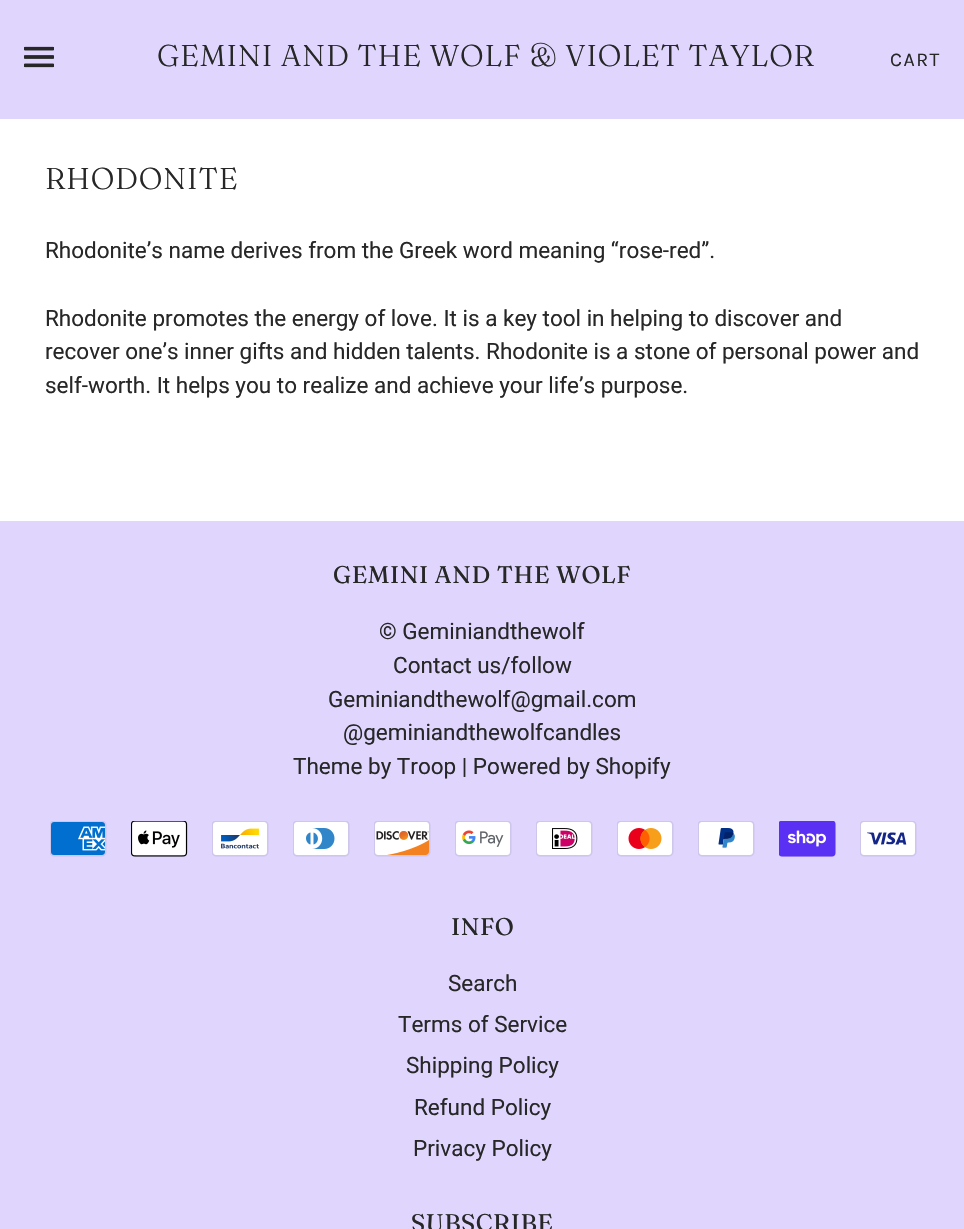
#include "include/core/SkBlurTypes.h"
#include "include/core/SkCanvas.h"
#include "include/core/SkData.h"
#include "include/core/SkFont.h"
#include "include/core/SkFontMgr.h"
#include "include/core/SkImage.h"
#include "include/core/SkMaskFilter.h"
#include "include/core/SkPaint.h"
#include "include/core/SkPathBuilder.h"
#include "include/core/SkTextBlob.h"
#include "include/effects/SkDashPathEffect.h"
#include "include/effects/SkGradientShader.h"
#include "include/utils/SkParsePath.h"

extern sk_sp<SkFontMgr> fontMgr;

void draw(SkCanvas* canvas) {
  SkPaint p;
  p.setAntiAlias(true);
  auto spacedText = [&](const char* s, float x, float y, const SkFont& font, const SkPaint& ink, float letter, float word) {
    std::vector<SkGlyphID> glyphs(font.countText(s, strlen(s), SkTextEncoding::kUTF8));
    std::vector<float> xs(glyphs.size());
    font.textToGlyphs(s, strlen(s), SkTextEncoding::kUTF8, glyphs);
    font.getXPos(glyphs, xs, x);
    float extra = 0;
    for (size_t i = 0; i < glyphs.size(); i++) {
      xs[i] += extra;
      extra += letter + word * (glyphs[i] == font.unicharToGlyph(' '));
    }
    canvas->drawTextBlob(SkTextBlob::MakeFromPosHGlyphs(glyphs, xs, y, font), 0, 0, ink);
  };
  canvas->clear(SK_ColorWHITE);
  p.setColor(SkColorSetRGB(223, 213, 253));
  canvas->drawRect(SkRect::MakeLTRB(0, 0, 964, 119), p);
  canvas->drawImageRect(SkImages::DeferredFromEncodedData(SkData::MakeFromFileName("images/1.png")), SkRect::MakeLTRB(24, 46, 54, 68), SkSamplingOptions());
  canvas->drawRect(SkRect::MakeLTRB(0, 521, 964, 1229), p);
  canvas->drawImageRect(SkImages::DeferredFromEncodedData(SkData::MakeFromFileName("images/2.png")), SkRect::MakeLTRB(50, 821, 107, 857), SkSamplingOptions());
  canvas->drawImageRect(SkImages::DeferredFromEncodedData(SkData::MakeFromFileName("images/3.png")), SkRect::MakeLTRB(131, 821, 188, 857), SkSamplingOptions());
  canvas->drawImageRect(SkImages::DeferredFromEncodedData(SkData::MakeFromFileName("images/4.png")), SkRect::MakeLTRB(212, 821, 269, 857), SkSamplingOptions());
  canvas->drawImageRect(SkImages::DeferredFromEncodedData(SkData::MakeFromFileName("images/5.png")), SkRect::MakeLTRB(293, 821, 350, 857), SkSamplingOptions());
  canvas->drawImageRect(SkImages::DeferredFromEncodedData(SkData::MakeFromFileName("images/6.png")), SkRect::MakeLTRB(374, 821, 431, 857), SkSamplingOptions());
  canvas->drawImageRect(SkImages::DeferredFromEncodedData(SkData::MakeFromFileName("images/7.png")), SkRect::MakeLTRB(455, 821, 512, 857), SkSamplingOptions());
  canvas->drawImageRect(SkImages::DeferredFromEncodedData(SkData::MakeFromFileName("images/8.png")), SkRect::MakeLTRB(536, 821, 593, 857), SkSamplingOptions());
  canvas->drawImageRect(SkImages::DeferredFromEncodedData(SkData::MakeFromFileName("images/9.png")), SkRect::MakeLTRB(617, 821, 674, 857), SkSamplingOptions());
  canvas->drawImageRect(SkImages::DeferredFromEncodedData(SkData::MakeFromFileName("images/10.png")), SkRect::MakeLTRB(698, 821, 755, 857), SkSamplingOptions());
  canvas->drawImageRect(SkImages::DeferredFromEncodedData(SkData::MakeFromFileName("images/11.png")), SkRect::MakeLTRB(779, 821, 836, 857), SkSamplingOptions());
  canvas->drawImageRect(SkImages::DeferredFromEncodedData(SkData::MakeFromFileName("images/12.png")), SkRect::MakeLTRB(860, 821, 917, 857), SkSamplingOptions());
  SkFont font1(fontMgr->matchFamilyStyle("Fraunces", SkFontStyle(300, SkFontStyle::kNormal_Width, SkFontStyle::kUpright_Slant)), 30);
  font1.setSubpixel(true);
  p.setColor(SkColorSetRGB(39, 39, 39));
  spacedText("GEMINI AND THE WOLF & VIOLET TAYLOR", 157, 66, font1, p, 0.75f, 0);
  SkFont font2(fontMgr->matchFamilyStyle("Karla", SkFontStyle::Normal()), 19.5f);
  font2.setSubpixel(true);
  spacedText("CART", 890, 66, font2, p, 1.5f, 0);
  spacedText("RHODONITE", 45, 189, font1, p, 0.75f, 0);
  SkFont font3(fontMgr->matchFamilyStyle("Roboto", SkFontStyle::Normal()), 22.5f);
  font3.setSubpixel(true);
  canvas->drawString("Rhodonite’s name derives from the Greek word meaning “rose-red”.", 45, 258, font3, p);
  canvas->drawString("Rhodonite promotes the energy of love. It is a key tool in helping to discover and", 45, 326, font3, p);
  canvas->drawString("recover one’s inner gifts and hidden talents. Rhodonite is a stone of personal power and", 45, 359, font3, p);
  canvas->drawString("self-worth. It helps you to realize and achieve your life’s purpose.", 45, 393, font3, p);
  SkFont font4(fontMgr->matchFamilyStyle("Fraunces", SkFontStyle::Normal()), 24);
  font4.setSubpixel(true);
  spacedText("GEMINI AND THE WOLF", 333, 583, font4, p, 0.6f, 0);
  canvas->drawString("© Geminiandthewolf", 379, 639, font3, p);
  canvas->drawString("Contact us/follow", 393, 673, font3, p);
  canvas->drawString("Geminiandthewolf@gmail.com", 328, 707, font3, p);
  canvas->drawString("@geminiandthewolfcandles", 343, 740, font3, p);
  canvas->drawString("Theme by Troop | Powered by Shopify", 293, 774, font3, p);
  spacedText("INFO", 451, 935, font4, p, 0.6f, 0);
  canvas->drawString("Search", 448, 991, font3, p);
  canvas->drawString("Terms of Service", 398, 1032, font3, p);
  canvas->drawString("Shipping Policy", 406, 1073, font3, p);
  canvas->drawString("Refund Policy", 414, 1115, font3, p);
  canvas->drawString("Privacy Policy", 413, 1156, font3, p);
  spacedText("SUBSCRIBE", 411, 1231, font4, p, 0.6f, 0);
}
